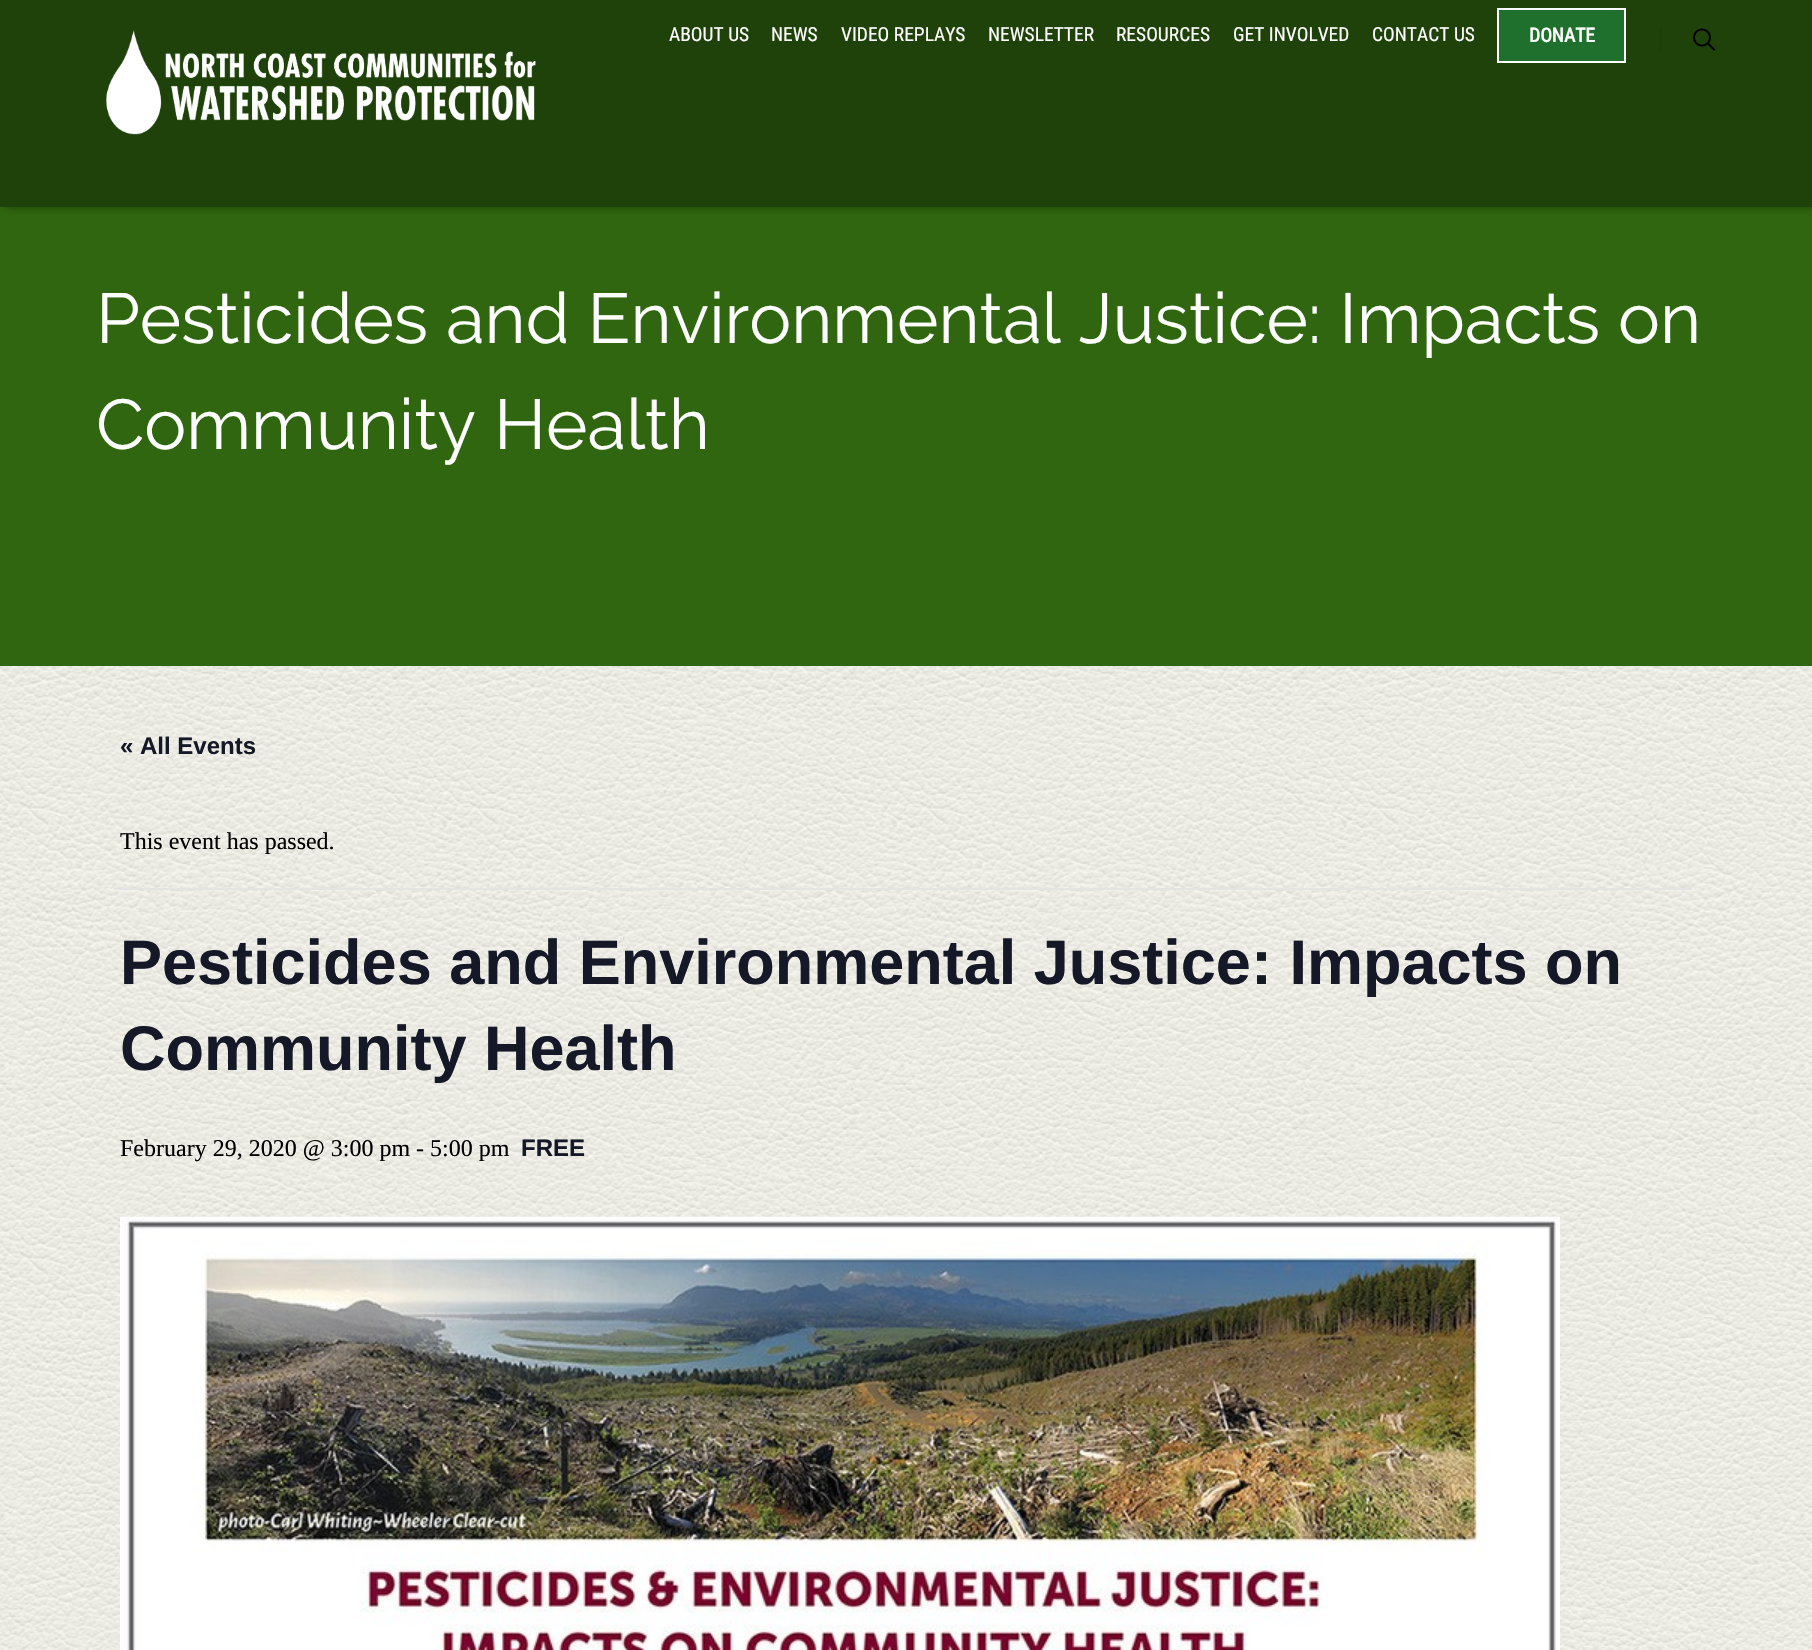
#include "include/core/SkBlurTypes.h"
#include "include/core/SkCanvas.h"
#include "include/core/SkData.h"
#include "include/core/SkFont.h"
#include "include/core/SkFontMgr.h"
#include "include/core/SkImage.h"
#include "include/core/SkMaskFilter.h"
#include "include/core/SkPaint.h"
#include "include/core/SkPathBuilder.h"
#include "include/core/SkTextBlob.h"
#include "include/effects/SkDashPathEffect.h"
#include "include/effects/SkGradientShader.h"
#include "include/utils/SkParsePath.h"

extern sk_sp<SkFontMgr> fontMgr;

void draw(SkCanvas* canvas) {
  SkPaint p;
  p.setAntiAlias(true);
  canvas->clear(SK_ColorWHITE);
  canvas->drawImageRect(SkImages::DeferredFromEncodedData(SkData::MakeFromFileName("images/1.png")), SkRect::MakeLTRB(0, 666, 1812, 1650), SkSamplingOptions());
  p.setColor(SkColorSetRGB(48, 102, 15));
  canvas->drawRect(SkRect::MakeLTRB(0, 207, 1812, 666), p);
  p.setColor(SkColorSetARGB(94, 0, 0, 0));
  p.setMaskFilter(SkMaskFilter::MakeBlur(kNormal_SkBlurStyle, 4.5f));
  canvas->drawRect(SkRect::MakeLTRB(5, 0, 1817, 207), p);
  p.setMaskFilter(nullptr);
  p.setColor(SkColorSetRGB(31, 66, 10));
  canvas->drawRect(SkRect::MakeLTRB(0, 0, 1812, 207), p);
  canvas->drawImageRect(SkImages::DeferredFromEncodedData(SkData::MakeFromFileName("images/2.png")), SkRect::MakeLTRB(106, 30, 536, 135), SkSamplingOptions());
  p.setColor(SkColorSetRGB(32, 112, 45));
  canvas->drawRect(SkRect::MakeLTRB(1498, 9, 1625, 62), p);
  p.setStyle(SkPaint::kStroke_Style);
  p.setStrokeWidth(2);
  p.setColor(SK_ColorWHITE);
  canvas->drawRect(SkRect::MakeLTRB(1498, 9, 1625, 62), p);
  p.setStyle(SkPaint::kFill_Style);
  p.setColor(SkColorSetRGB(29, 62, 9));
  canvas->drawRect(SkRect::MakeLTRB(1659, 27, 1662, 51), p);
  canvas->drawImageRect(SkImages::DeferredFromEncodedData(SkData::MakeFromFileName("images/3.png")), SkRect::MakeLTRB(1693, 28, 1715, 51), SkSamplingOptions());
  p.setColor(SkColorSetRGB(228, 228, 228));
  canvas->drawRect(SkRect::MakeLTRB(120, 888, 1692, 890), p);
  canvas->drawImageRect(SkImages::DeferredFromEncodedData(SkData::MakeFromFileName("images/4.png")), SkRect::MakeLTRB(120, 1216, 1560, 1650), SkSamplingOptions());
  SkFont font1(fontMgr->matchFamilyStyle("Roboto Condensed", SkFontStyle::Normal()), 19.5f);
  font1.setSubpixel(true);
  p.setColor(SK_ColorWHITE);
  canvas->drawString("ABOUT US", 669, 41, font1, p);
  canvas->drawString("NEWS", 771, 41, font1, p);
  canvas->drawString("VIDEO REPLAYS", 841, 41, font1, p);
  canvas->drawString("NEWSLETTER", 988, 41, font1, p);
  canvas->drawString("RESOURCES", 1116, 41, font1, p);
  canvas->drawString("GET INVOLVED", 1233, 41, font1, p);
  canvas->drawString("CONTACT US", 1372, 41, font1, p);
  SkFont font2(fontMgr->matchFamilyStyle("Roboto Condensed", SkFontStyle::Bold()), 19.5f);
  font2.setSubpixel(true);
  canvas->drawString("DONATE", 1529, 42, font2, p);
  SkFont font3(fontMgr->matchFamilyStyle("Raleway", SkFontStyle::Normal()), 70.5f);
  font3.setSubpixel(true);
  canvas->drawString("Pesticides and Environmental Justice: Impacts on", 96, 343, font3, p);
  canvas->drawString("Community Health", 96, 449, font3, p);
  SkFont font4(fontMgr->matchFamilyStyle("Liberation Sans", SkFontStyle::Bold()), 24);
  font4.setSubpixel(true);
  p.setColor(SkColorSetRGB(20, 24, 39));
  canvas->drawString("« All Events", 120, 754, font4, p);
  SkFont font5(fontMgr->matchFamilyStyle("Liberation Serif", SkFontStyle::Normal()), 24);
  font5.setSubpixel(true);
  p.setColor(SK_ColorBLACK);
  canvas->drawString("This event has passed.", 120, 849, font5, p);
  SkFont font6(fontMgr->matchFamilyStyle("Liberation Sans", SkFontStyle::Bold()), 63);
  font6.setSubpixel(true);
  p.setColor(SkColorSetRGB(20, 24, 39));
  canvas->drawString("Pesticides and Environmental Justice: Impacts on", 120, 984, font6, p);
  canvas->drawString("Community Health", 120, 1070, font6, p);
  p.setColor(SK_ColorBLACK);
  canvas->drawString("February 29, 2020 @ 3:00 pm - 5:00 pm", 120, 1156, font5, p);
  p.setColor(SkColorSetRGB(20, 24, 39));
  canvas->drawString("FREE", 521, 1156, font4, p);
}
